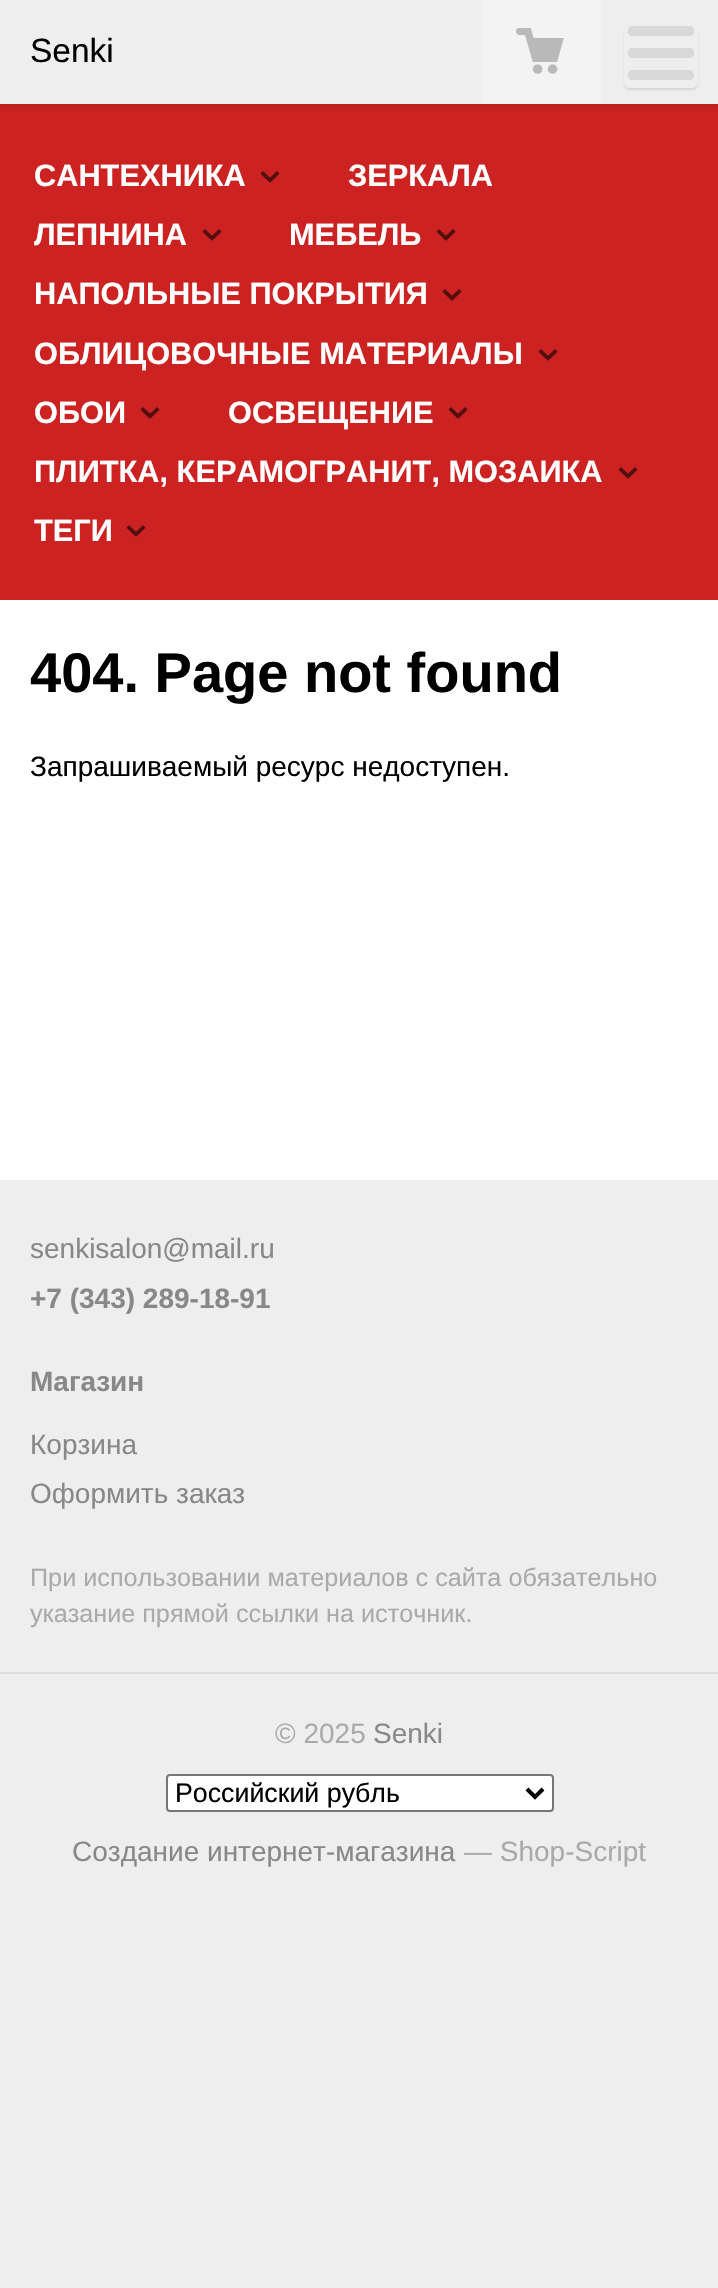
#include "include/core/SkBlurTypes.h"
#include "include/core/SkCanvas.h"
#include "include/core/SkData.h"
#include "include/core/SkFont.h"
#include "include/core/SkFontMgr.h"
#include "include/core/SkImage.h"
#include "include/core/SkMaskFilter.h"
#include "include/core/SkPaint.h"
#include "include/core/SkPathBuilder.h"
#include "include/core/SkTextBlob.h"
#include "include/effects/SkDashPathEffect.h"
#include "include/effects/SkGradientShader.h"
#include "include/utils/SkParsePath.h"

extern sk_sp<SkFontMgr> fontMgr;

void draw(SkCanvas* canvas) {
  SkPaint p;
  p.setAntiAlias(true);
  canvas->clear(SkColorSetRGB(238, 238, 238));
  p.setColor(SkColorSetRGB(204, 34, 34));
  canvas->drawRect(SkRect::MakeLTRB(0, 104, 718, 600), p);
  canvas->save();
  canvas->clipRect(SkRect::MakeLTRB(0, 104, 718, 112));
  p.setColor(SkColorSetARGB(26, 0, 0, 0));
  p.setMaskFilter(SkMaskFilter::MakeBlur(kNormal_SkBlurStyle, 5));
  canvas->drawRect(SkRect::MakeLTRB(0, 4, 718, 108), p);
  p.setMaskFilter(nullptr);
  canvas->restore();
  p.setColor(SkColorSetRGB(243, 243, 243));
  canvas->drawRect(SkRect::MakeLTRB(482, 0, 602, 104), p);
  canvas->drawImageRect(SkImages::DeferredFromEncodedData(SkData::MakeFromFileName("images/1.png")), SkRect::MakeLTRB(516, 28, 564, 74), SkSamplingOptions());
  canvas->save();
  canvas->clipPath(SkPathBuilder(SkPathFillType::kEvenOdd).moveTo(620, 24).lineTo(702, 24).lineTo(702, 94).lineTo(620, 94).close().moveTo(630, 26).lineTo(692, 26).cubicTo(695.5f, 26, 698, 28.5f, 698, 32).lineTo(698, 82).cubicTo(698, 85.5f, 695.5f, 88, 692, 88).lineTo(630, 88).cubicTo(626.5f, 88, 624, 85.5f, 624, 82).lineTo(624, 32).cubicTo(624, 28.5f, 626.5f, 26, 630, 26).close().detach(), true);
  p.setColor(SkColorSetARGB(26, 0, 0, 0));
  p.setMaskFilter(SkMaskFilter::MakeBlur(kNormal_SkBlurStyle, 1));
  canvas->drawRoundRect(SkRect::MakeLTRB(624, 28, 698, 90), 6, 6, p);
  p.setMaskFilter(nullptr);
  canvas->restore();
  canvas->drawImageRect(SkImages::DeferredFromEncodedData(SkData::MakeFromFileName("images/2.png")), SkRect::MakeLTRB(628, 26, 694, 80), SkSamplingOptions());
  canvas->drawImageRect(SkImages::DeferredFromEncodedData(SkData::MakeFromFileName("images/3.png")), SkRect::MakeLTRB(260, 171, 280, 183), SkSamplingOptions());
  canvas->drawImageRect(SkImages::DeferredFromEncodedData(SkData::MakeFromFileName("images/3.png")), SkRect::MakeLTRB(202, 229, 222, 241), SkSamplingOptions());
  canvas->drawImageRect(SkImages::DeferredFromEncodedData(SkData::MakeFromFileName("images/3.png")), SkRect::MakeLTRB(436, 229, 456, 241), SkSamplingOptions());
  canvas->drawImageRect(SkImages::DeferredFromEncodedData(SkData::MakeFromFileName("images/3.png")), SkRect::MakeLTRB(442, 289, 462, 301), SkSamplingOptions());
  canvas->drawImageRect(SkImages::DeferredFromEncodedData(SkData::MakeFromFileName("images/3.png")), SkRect::MakeLTRB(538, 349, 558, 361), SkSamplingOptions());
  canvas->drawImageRect(SkImages::DeferredFromEncodedData(SkData::MakeFromFileName("images/3.png")), SkRect::MakeLTRB(140, 407, 160, 419), SkSamplingOptions());
  canvas->drawImageRect(SkImages::DeferredFromEncodedData(SkData::MakeFromFileName("images/3.png")), SkRect::MakeLTRB(448, 407, 468, 419), SkSamplingOptions());
  canvas->drawImageRect(SkImages::DeferredFromEncodedData(SkData::MakeFromFileName("images/3.png")), SkRect::MakeLTRB(618, 467, 638, 479), SkSamplingOptions());
  canvas->drawImageRect(SkImages::DeferredFromEncodedData(SkData::MakeFromFileName("images/3.png")), SkRect::MakeLTRB(126, 525, 146, 537), SkSamplingOptions());
  p.setColor(SK_ColorWHITE);
  canvas->drawRect(SkRect::MakeLTRB(0, 600, 718, 1180), p);
  p.setColor(SkColorSetRGB(221, 221, 221));
  canvas->drawRect(SkRect::MakeLTRB(0, 1672, 718, 1674), p);
  p.setColor(SK_ColorWHITE);
  canvas->drawRoundRect(SkRect::MakeLTRB(167, 1775, 553, 1811), 3, 3, p);
  p.setStyle(SkPaint::kStroke_Style);
  p.setStrokeWidth(2);
  p.setColor(SkColorSetRGB(118, 118, 118));
  canvas->drawRoundRect(SkRect::MakeLTRB(167, 1775, 553, 1811), 3, 3, p);
  p.setStrokeWidth(4);
  p.setColor(SK_ColorBLACK);
  canvas->drawPath(SkPathBuilder().moveTo(527, 1789).lineTo(535, 1797).lineTo(543, 1789).detach(), p);
  SkFont font1(fontMgr->matchFamilyStyle("Liberation Sans", SkFontStyle::Normal()), 33.5f);
  font1.setSubpixel(true);
  p.setStyle(SkPaint::kFill_Style);
  canvas->drawString("Senki", 30, 62, font1, p);
  SkFont font2(fontMgr->matchFamilyStyle("Liberation Sans", SkFontStyle::Bold()), 30.75f);
  font2.setSubpixel(true);
  p.setColor(SK_ColorWHITE);
  canvas->drawString("CАНТЕХНИКА", 34, 186, font2, p);
  canvas->drawString("ЗЕРКАЛА", 348, 186, font2, p);
  canvas->drawString("ЛЕПНИНА", 34, 245, font2, p);
  canvas->drawString("МЕБЕЛЬ", 289, 245, font2, p);
  canvas->drawString("НАПОЛЬНЫЕ ПОКРЫТИЯ", 34, 304, font2, p);
  canvas->drawString("ОБЛИЦОВОЧНЫЕ МАТЕРИАЛЫ", 34, 364, font2, p);
  canvas->drawString("ОБОИ", 34, 423, font2, p);
  canvas->drawString("ОСВЕЩЕНИЕ", 228, 423, font2, p);
  canvas->drawString("ПЛИТКА, КЕРАМОГРАНИТ, МОЗАИКА", 34, 482, font2, p);
  canvas->drawString("ТЕГИ", 34, 541, font2, p);
  SkFont font3(fontMgr->matchFamilyStyle("Liberation Sans", SkFontStyle::Bold()), 56);
  font3.setSubpixel(true);
  p.setColor(SK_ColorBLACK);
  canvas->drawString("404. Page not found", 30, 692, font3, p);
  SkFont font4(fontMgr->matchFamilyStyle("Liberation Sans", SkFontStyle::Normal()), 28);
  font4.setSubpixel(true);
  canvas->drawString("Запрашиваемый ресурс недоступен.", 30, 776, font4, p);
  p.setColor(SkColorSetRGB(136, 136, 136));
  canvas->drawString("senkisalon@mail.ru", 30, 1258, font4, p);
  SkFont font5(fontMgr->matchFamilyStyle("Liberation Sans", SkFontStyle::Bold()), 28);
  font5.setSubpixel(true);
  canvas->drawString("+7 (343) 289-18-91", 30, 1308, font5, p);
  canvas->drawString("Магазин", 30, 1391, font5, p);
  canvas->drawString("Корзина", 30, 1454, font4, p);
  canvas->drawString("Оформить заказ", 30, 1503, font4, p);
  SkFont font6(fontMgr->matchFamilyStyle("Liberation Sans", SkFontStyle::Normal()), 25.2f);
  font6.setSubpixel(true);
  p.setColor(SkColorSetRGB(170, 170, 170));
  canvas->drawString("При использовании материалов с сайта обязательно", 30, 1586, font6, p);
  canvas->drawString("указание прямой ссылки на источник.", 30, 1622, font6, p);
  canvas->drawString("© 2025", 275, 1743, font4, p);
  p.setColor(SkColorSetRGB(136, 136, 136));
  canvas->drawString("Senki", 373, 1743, font4, p);
  SkFont font7(fontMgr->matchFamilyStyle("Liberation Sans", SkFontStyle::Normal()), 26.75f);
  font7.setSubpixel(true);
  p.setColor(SK_ColorBLACK);
  canvas->drawString("Российский рубль", 175, 1802, font7, p);
  p.setColor(SkColorSetRGB(136, 136, 136));
  canvas->drawString("Создание интернет-магазина", 72, 1861, font4, p);
  p.setColor(SkColorSetRGB(170, 170, 170));
  canvas->drawString("— Shop-Script", 464, 1861, font4, p);
}
